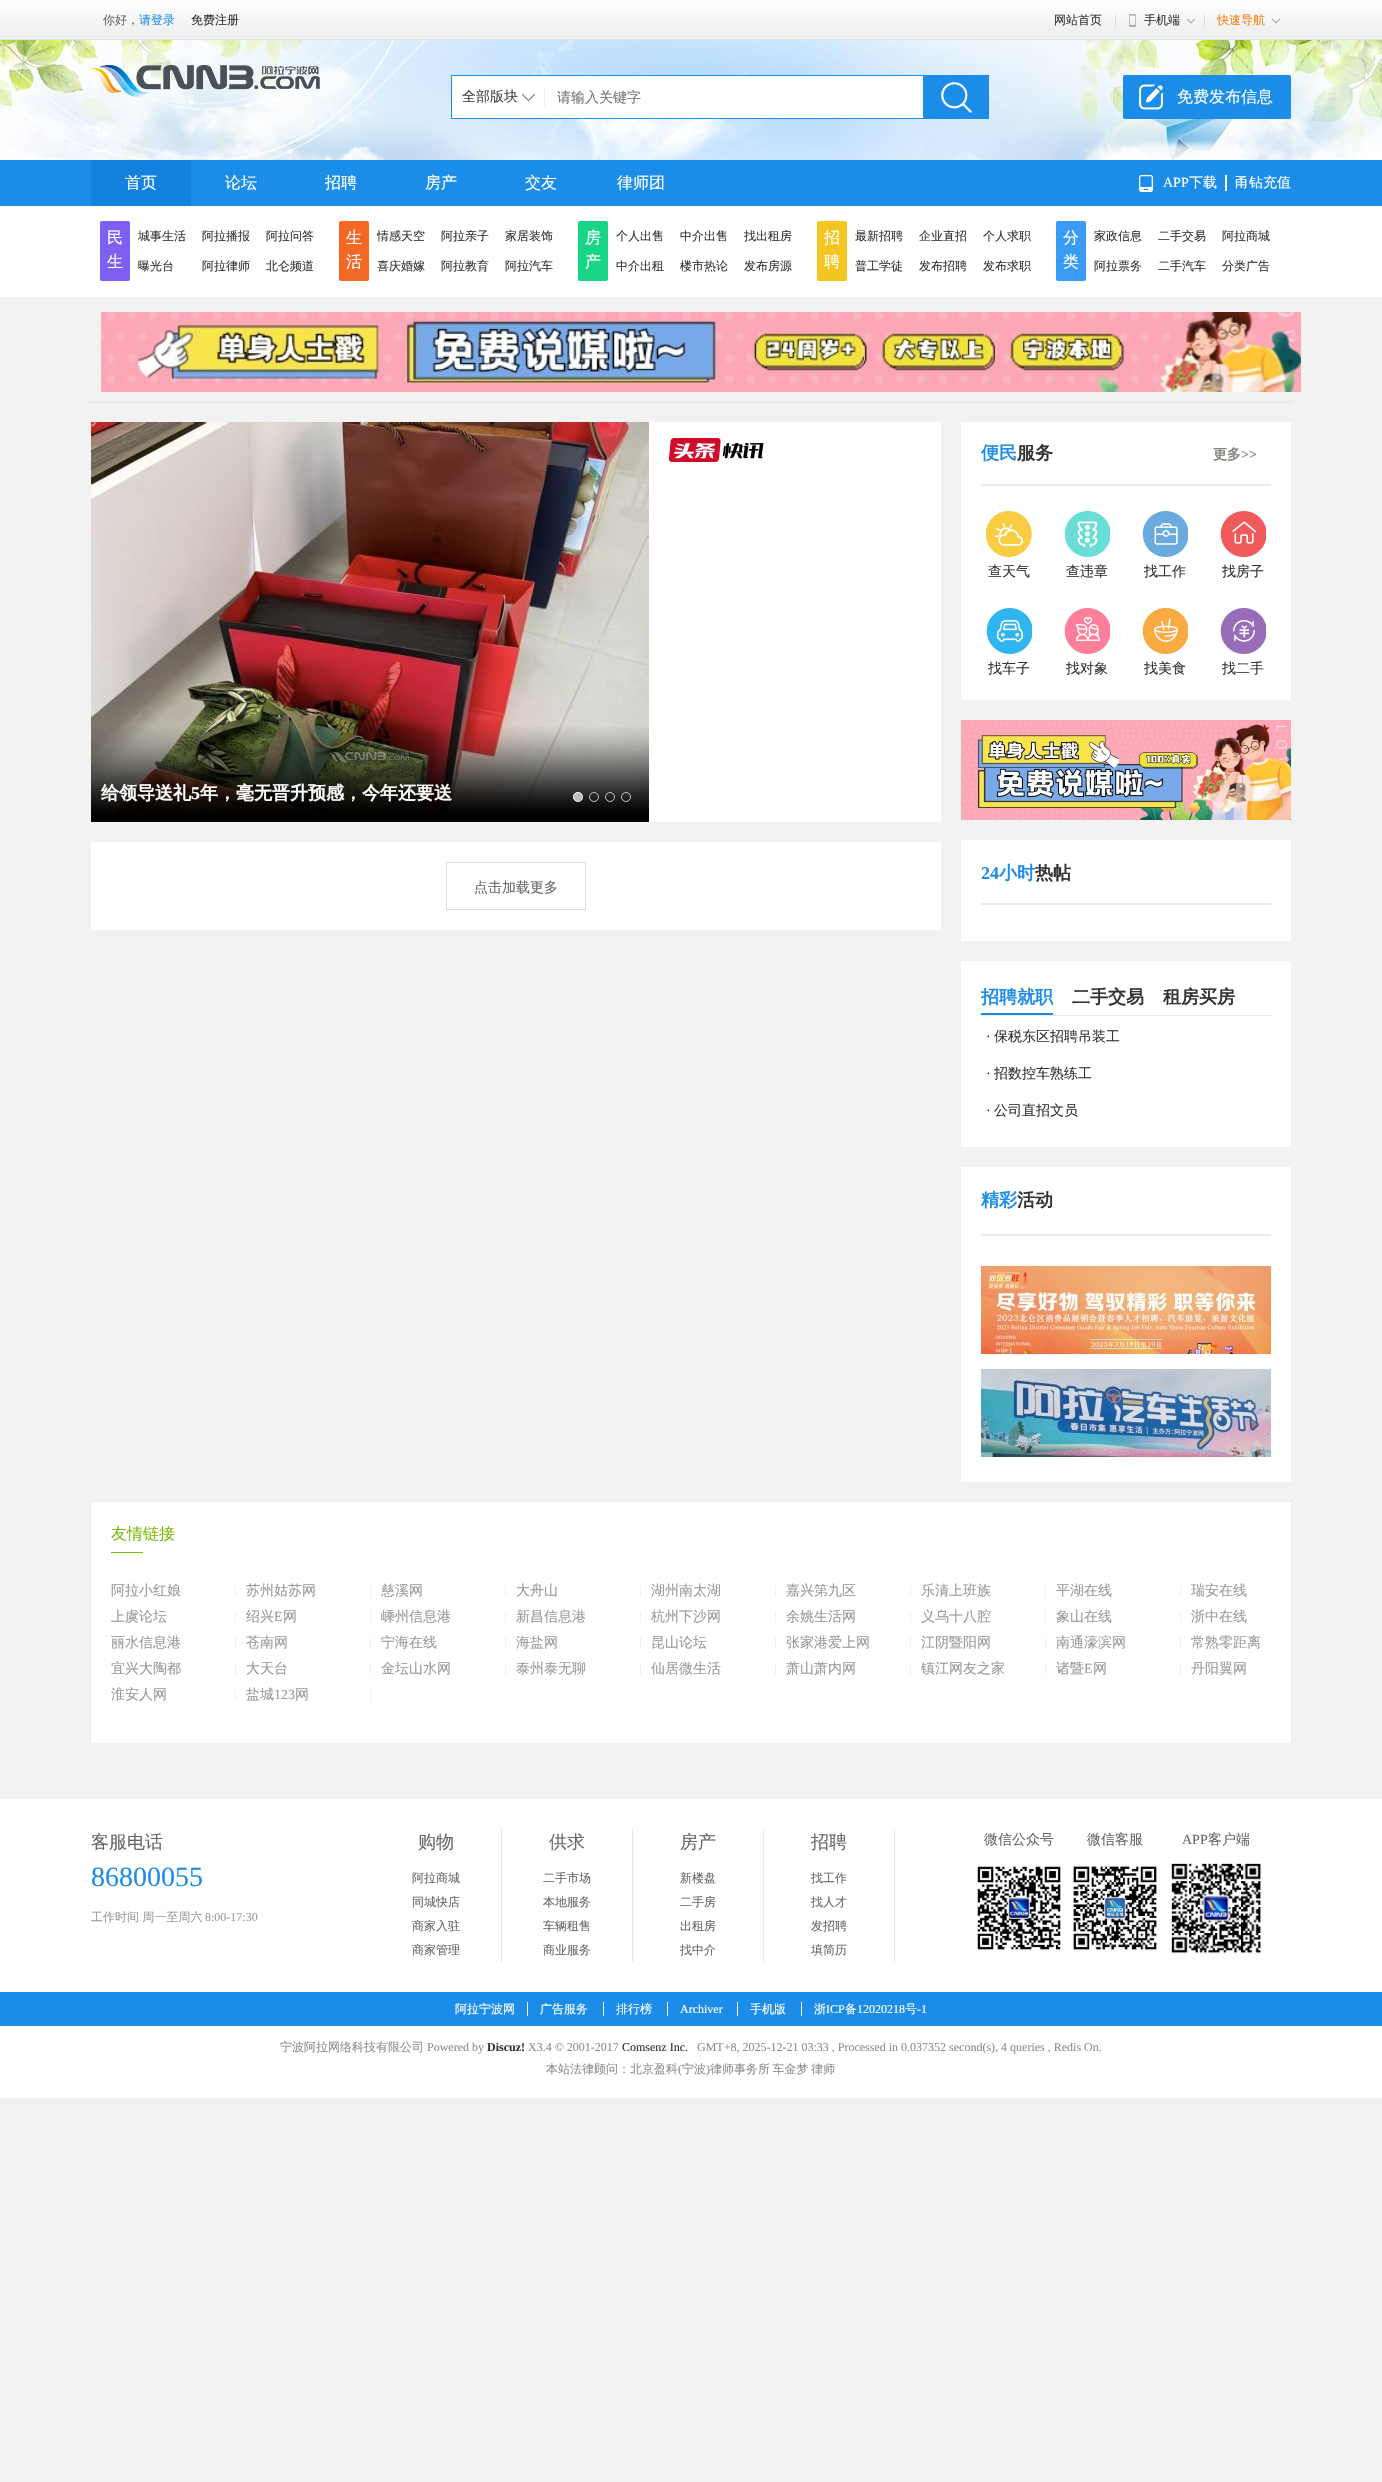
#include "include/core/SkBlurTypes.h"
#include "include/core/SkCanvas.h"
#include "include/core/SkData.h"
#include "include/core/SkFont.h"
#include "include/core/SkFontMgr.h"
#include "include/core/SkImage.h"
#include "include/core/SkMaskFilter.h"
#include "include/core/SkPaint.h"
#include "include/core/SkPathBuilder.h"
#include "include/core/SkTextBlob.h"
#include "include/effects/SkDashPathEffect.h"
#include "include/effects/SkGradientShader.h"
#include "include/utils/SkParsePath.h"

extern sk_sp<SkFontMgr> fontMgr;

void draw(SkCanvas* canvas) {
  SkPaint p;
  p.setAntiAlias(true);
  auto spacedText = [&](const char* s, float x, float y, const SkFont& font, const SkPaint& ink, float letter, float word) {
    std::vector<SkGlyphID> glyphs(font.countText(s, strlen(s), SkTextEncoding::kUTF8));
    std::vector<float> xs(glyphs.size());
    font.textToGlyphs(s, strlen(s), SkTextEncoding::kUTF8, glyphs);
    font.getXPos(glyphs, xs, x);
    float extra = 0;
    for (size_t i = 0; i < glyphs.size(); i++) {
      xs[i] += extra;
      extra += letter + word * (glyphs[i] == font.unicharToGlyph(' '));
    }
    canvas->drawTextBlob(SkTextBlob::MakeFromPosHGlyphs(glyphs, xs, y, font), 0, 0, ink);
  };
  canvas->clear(SkColorSetRGB(242, 242, 242));
  canvas->drawImageRect(SkImages::DeferredFromEncodedData(SkData::MakeFromFileName("images/1.png")), SkRect::MakeLTRB(0, 0, 1382, 40), SkSamplingOptions());
  p.setColor(SkColorSetRGB(221, 221, 221));
  canvas->drawRect(SkRect::MakeLTRB(1115, 14, 1116, 28), p);
  canvas->drawImageRect(SkImages::DeferredFromEncodedData(SkData::MakeFromFileName("images/2.png")), SkRect::MakeLTRB(1129, 14, 1136, 27), SkSamplingOptions());
  canvas->drawImageRect(SkImages::DeferredFromEncodedData(SkData::MakeFromFileName("images/3.png")), SkRect::MakeLTRB(1186, 19, 1195, 24), SkSamplingOptions());
  canvas->drawRect(SkRect::MakeLTRB(1204, 14, 1205, 28), p);
  canvas->drawImageRect(SkImages::DeferredFromEncodedData(SkData::MakeFromFileName("images/3.png")), SkRect::MakeLTRB(1271, 19, 1280, 24), SkSamplingOptions());
  canvas->drawImageRect(SkImages::DeferredFromEncodedData(SkData::MakeFromFileName("images/4.png")), SkRect::MakeLTRB(0, 40, 1382, 160), SkSamplingOptions());
  canvas->drawImageRect(SkImages::DeferredFromEncodedData(SkData::MakeFromFileName("images/5.png")), SkRect::MakeLTRB(91, 65, 320, 97), SkSamplingOptions());
  p.setColor(SK_ColorWHITE);
  canvas->drawRect(SkRect::MakeLTRB(452, 76, 923, 118), p);
  p.setStyle(SkPaint::kStroke_Style);
  p.setStrokeWidth(1);
  p.setColor(SkColorSetRGB(28, 140, 233));
  canvas->drawRect(SkRect::MakeLTRB(451.5f, 75.5f, 988.5f, 118.5f), p);
  p.setStyle(SkPaint::kFill_Style);
  p.setColor(SkColorSetRGB(235, 235, 235));
  canvas->drawRect(SkRect::MakeLTRB(544, 88, 545, 106), p);
  canvas->drawImageRect(SkImages::DeferredFromEncodedData(SkData::MakeFromFileName("images/6.png")), SkRect::MakeLTRB(522, 94, 535, 101), SkSamplingOptions());
  p.setColor(SkColorSetRGB(28, 140, 233));
  canvas->drawPath(SkPathBuilder().moveTo(923, 75).lineTo(987, 75).cubicTo(988, 75, 989, 76, 989, 77).lineTo(989, 117).cubicTo(989, 118, 988, 119, 987, 119).lineTo(923, 119).close().detach(), p);
  canvas->drawImageRect(SkImages::DeferredFromEncodedData(SkData::MakeFromFileName("images/7.png")), SkRect::MakeLTRB(941, 82, 972, 113), SkSamplingOptions());
  canvas->drawRoundRect(SkRect::MakeLTRB(1123, 75, 1291, 119), 2, 2, p);
  canvas->drawImageRect(SkImages::DeferredFromEncodedData(SkData::MakeFromFileName("images/8.png")), SkRect::MakeLTRB(1139, 84, 1163, 110), SkSamplingOptions());
  canvas->drawRect(SkRect::MakeLTRB(0, 160, 1382, 206), p);
  p.setColor(SkColorSetRGB(19, 130, 222));
  canvas->drawRect(SkRect::MakeLTRB(91, 160, 191, 206), p);
  canvas->drawImageRect(SkImages::DeferredFromEncodedData(SkData::MakeFromFileName("images/9.png")), SkRect::MakeLTRB(1139, 175, 1153, 192), SkSamplingOptions());
  p.setColor(SK_ColorWHITE);
  canvas->drawRect(SkRect::MakeLTRB(1225, 175, 1227, 191), p);
  canvas->drawRect(SkRect::MakeLTRB(0, 206, 1382, 297), p);
  p.setColor(SkColorSetRGB(126, 95, 242));
  canvas->drawRoundRect(SkRect::MakeLTRB(100, 221, 130, 281), 2, 2, p);
  p.setColor(SkColorSetRGB(243, 104, 37));
  canvas->drawRoundRect(SkRect::MakeLTRB(339, 221, 369, 281), 2, 2, p);
  p.setColor(SkColorSetRGB(24, 212, 135));
  canvas->drawRoundRect(SkRect::MakeLTRB(578, 221, 608, 281), 2, 2, p);
  p.setColor(SkColorSetRGB(244, 197, 32));
  canvas->drawRoundRect(SkRect::MakeLTRB(817, 221, 847, 281), 2, 2, p);
  p.setColor(SkColorSetRGB(57, 155, 243));
  canvas->drawRoundRect(SkRect::MakeLTRB(1056, 221, 1086, 281), 2, 2, p);
  canvas->drawImageRect(SkImages::DeferredFromEncodedData(SkData::MakeFromFileName("images/10.png")), SkRect::MakeLTRB(101, 312, 1301, 392), SkSamplingOptions());
  p.setColor(SkColorSetRGB(235, 235, 237));
  canvas->drawRect(SkRect::MakeLTRB(90, 401, 1292, 403), p);
  p.setColor(SK_ColorWHITE);
  canvas->drawRect(SkRect::MakeLTRB(649, 422, 941, 822), p);
  canvas->drawImageRect(SkImages::DeferredFromEncodedData(SkData::MakeFromFileName("images/11.png")), SkRect::MakeLTRB(669, 438, 764, 462), SkSamplingOptions());
  canvas->drawImageRect(SkImages::DeferredFromEncodedData(SkData::MakeFromFileName("images/12.png")), SkRect::MakeLTRB(91, 422, 649, 815), SkSamplingOptions());
  canvas->drawImageRect(SkImages::DeferredFromEncodedData(SkData::MakeFromFileName("images/13.png")), SkRect::MakeLTRB(91, 727, 649, 822), SkSamplingOptions());
  p.setColor(SkColorSetARGB(179, 255, 255, 255));
  canvas->drawCircle(578, 797, 5, p);
  p.setStyle(SkPaint::kStroke_Style);
  canvas->drawCircle(578, 797, 4.5f, p);
  canvas->drawCircle(594, 797, 4.5f, p);
  canvas->drawCircle(610, 797, 4.5f, p);
  canvas->drawCircle(626, 797, 4.5f, p);
  p.setStyle(SkPaint::kFill_Style);
  p.setColor(SK_ColorWHITE);
  canvas->drawRect(SkRect::MakeLTRB(91, 842, 941, 930), p);
  p.setStyle(SkPaint::kStroke_Style);
  p.setColor(SkColorSetRGB(221, 221, 221));
  canvas->drawRect(SkRect::MakeLTRB(446.5f, 862.5f, 585.5f, 909.5f), p);
  p.setStyle(SkPaint::kFill_Style);
  p.setColor(SK_ColorWHITE);
  canvas->drawRect(SkRect::MakeLTRB(961, 422, 1291, 700), p);
  p.setColor(SkColorSetRGB(235, 235, 237));
  canvas->drawRect(SkRect::MakeLTRB(981, 484, 1271, 486), p);
  canvas->drawImageRect(SkImages::DeferredFromEncodedData(SkData::MakeFromFileName("images/14.png")), SkRect::MakeLTRB(986, 511, 1032, 557), SkSamplingOptions());
  canvas->drawImageRect(SkImages::DeferredFromEncodedData(SkData::MakeFromFileName("images/15.png")), SkRect::MakeLTRB(1064, 511, 1110, 557), SkSamplingOptions());
  canvas->drawImageRect(SkImages::DeferredFromEncodedData(SkData::MakeFromFileName("images/16.png")), SkRect::MakeLTRB(1142, 511, 1188, 557), SkSamplingOptions());
  canvas->drawImageRect(SkImages::DeferredFromEncodedData(SkData::MakeFromFileName("images/17.png")), SkRect::MakeLTRB(1220, 511, 1266, 557), SkSamplingOptions());
  canvas->drawImageRect(SkImages::DeferredFromEncodedData(SkData::MakeFromFileName("images/18.png")), SkRect::MakeLTRB(986, 608, 1032, 654), SkSamplingOptions());
  canvas->drawImageRect(SkImages::DeferredFromEncodedData(SkData::MakeFromFileName("images/19.png")), SkRect::MakeLTRB(1064, 608, 1110, 654), SkSamplingOptions());
  canvas->drawImageRect(SkImages::DeferredFromEncodedData(SkData::MakeFromFileName("images/20.png")), SkRect::MakeLTRB(1142, 608, 1188, 654), SkSamplingOptions());
  canvas->drawImageRect(SkImages::DeferredFromEncodedData(SkData::MakeFromFileName("images/21.png")), SkRect::MakeLTRB(1220, 608, 1266, 654), SkSamplingOptions());
  canvas->drawImageRect(SkImages::DeferredFromEncodedData(SkData::MakeFromFileName("images/22.png")), SkRect::MakeLTRB(961, 720, 1291, 820), SkSamplingOptions());
  p.setColor(SK_ColorWHITE);
  canvas->drawRect(SkRect::MakeLTRB(961, 840, 1291, 941), p);
  p.setColor(SkColorSetRGB(235, 235, 237));
  canvas->drawRect(SkRect::MakeLTRB(981, 903, 1271, 905), p);
  p.setColor(SK_ColorWHITE);
  canvas->drawRect(SkRect::MakeLTRB(961, 961, 1291, 1147), p);
  p.setColor(SkColorSetRGB(235, 235, 237));
  canvas->drawRect(SkRect::MakeLTRB(981, 1015, 1272, 1016), p);
  p.setColor(SkColorSetRGB(28, 140, 233));
  canvas->drawRect(SkRect::MakeLTRB(981, 1013, 1053, 1015), p);
  p.setColor(SK_ColorWHITE);
  canvas->drawRect(SkRect::MakeLTRB(961, 1167, 1291, 1482), p);
  p.setColor(SkColorSetRGB(235, 235, 237));
  canvas->drawRect(SkRect::MakeLTRB(981, 1234, 1271, 1236), p);
  canvas->drawImageRect(SkImages::DeferredFromEncodedData(SkData::MakeFromFileName("images/23.png")), SkRect::MakeLTRB(981, 1266, 1271, 1354), SkSamplingOptions());
  canvas->drawImageRect(SkImages::DeferredFromEncodedData(SkData::MakeFromFileName("images/24.png")), SkRect::MakeLTRB(981, 1369, 1271, 1457), SkSamplingOptions());
  p.setStyle(SkPaint::kStroke_Style);
  canvas->drawRect(SkRect::MakeLTRB(90.5f, 1501.5f, 1291.5f, 1743.5f), p);
  p.setStyle(SkPaint::kFill_Style);
  p.setColor(SK_ColorWHITE);
  canvas->drawRect(SkRect::MakeLTRB(91, 1502, 1291, 1743), p);
  p.setColor(SkColorSetRGB(120, 187, 9));
  canvas->drawRect(SkRect::MakeLTRB(111, 1552, 143, 1553), p);
  p.setColor(SkColorSetRGB(241, 241, 241));
  canvas->drawRect(SkRect::MakeLTRB(235, 1585, 236, 1597), p);
  canvas->drawRect(SkRect::MakeLTRB(370, 1585, 371, 1597), p);
  canvas->drawRect(SkRect::MakeLTRB(505, 1585, 506, 1597), p);
  canvas->drawRect(SkRect::MakeLTRB(640, 1585, 641, 1597), p);
  canvas->drawRect(SkRect::MakeLTRB(775, 1585, 776, 1597), p);
  canvas->drawRect(SkRect::MakeLTRB(910, 1585, 911, 1597), p);
  canvas->drawRect(SkRect::MakeLTRB(1045, 1585, 1046, 1597), p);
  canvas->drawRect(SkRect::MakeLTRB(1180, 1585, 1181, 1597), p);
  canvas->drawRect(SkRect::MakeLTRB(235, 1611, 236, 1623), p);
  canvas->drawRect(SkRect::MakeLTRB(370, 1611, 371, 1623), p);
  canvas->drawRect(SkRect::MakeLTRB(505, 1611, 506, 1623), p);
  canvas->drawRect(SkRect::MakeLTRB(640, 1611, 641, 1623), p);
  canvas->drawRect(SkRect::MakeLTRB(775, 1611, 776, 1623), p);
  canvas->drawRect(SkRect::MakeLTRB(910, 1611, 911, 1623), p);
  canvas->drawRect(SkRect::MakeLTRB(1045, 1611, 1046, 1623), p);
  canvas->drawRect(SkRect::MakeLTRB(1180, 1611, 1181, 1623), p);
  canvas->drawRect(SkRect::MakeLTRB(235, 1637, 236, 1649), p);
  canvas->drawRect(SkRect::MakeLTRB(370, 1637, 371, 1649), p);
  canvas->drawRect(SkRect::MakeLTRB(505, 1637, 506, 1649), p);
  canvas->drawRect(SkRect::MakeLTRB(640, 1637, 641, 1649), p);
  canvas->drawRect(SkRect::MakeLTRB(775, 1637, 776, 1649), p);
  canvas->drawRect(SkRect::MakeLTRB(910, 1637, 911, 1649), p);
  canvas->drawRect(SkRect::MakeLTRB(1045, 1637, 1046, 1649), p);
  canvas->drawRect(SkRect::MakeLTRB(1180, 1637, 1181, 1649), p);
  canvas->drawRect(SkRect::MakeLTRB(235, 1663, 236, 1675), p);
  canvas->drawRect(SkRect::MakeLTRB(370, 1663, 371, 1675), p);
  canvas->drawRect(SkRect::MakeLTRB(505, 1663, 506, 1675), p);
  canvas->drawRect(SkRect::MakeLTRB(640, 1663, 641, 1675), p);
  canvas->drawRect(SkRect::MakeLTRB(775, 1663, 776, 1675), p);
  canvas->drawRect(SkRect::MakeLTRB(910, 1663, 911, 1675), p);
  canvas->drawRect(SkRect::MakeLTRB(1045, 1663, 1046, 1675), p);
  canvas->drawRect(SkRect::MakeLTRB(1180, 1663, 1181, 1675), p);
  canvas->drawRect(SkRect::MakeLTRB(235, 1689, 236, 1701), p);
  canvas->drawRect(SkRect::MakeLTRB(370, 1689, 371, 1701), p);
  p.setColor(SkColorSetRGB(242, 242, 242));
  canvas->drawRect(SkRect::MakeLTRB(91, 1743, 1291, 1744), p);
  p.setColor(SK_ColorWHITE);
  canvas->drawRect(SkRect::MakeLTRB(0, 1799, 1382, 1992), p);
  p.setColor(SkColorSetRGB(232, 232, 232));
  canvas->drawRect(SkRect::MakeLTRB(501, 1829, 502, 1962), p);
  canvas->drawRect(SkRect::MakeLTRB(632, 1829, 633, 1962), p);
  canvas->drawRect(SkRect::MakeLTRB(763, 1829, 764, 1962), p);
  canvas->drawRect(SkRect::MakeLTRB(894, 1829, 895, 1962), p);
  canvas->drawImageRect(SkImages::DeferredFromEncodedData(SkData::MakeFromFileName("images/25.png")), SkRect::MakeLTRB(976, 1866, 1061, 1950), SkSamplingOptions());
  canvas->drawImageRect(SkImages::DeferredFromEncodedData(SkData::MakeFromFileName("images/26.png")), SkRect::MakeLTRB(1072, 1865, 1157, 1950), SkSamplingOptions());
  canvas->drawImageRect(SkImages::DeferredFromEncodedData(SkData::MakeFromFileName("images/27.png")), SkRect::MakeLTRB(1171, 1863, 1262, 1954), SkSamplingOptions());
  p.setColor(SkColorSetRGB(28, 140, 233));
  canvas->drawRect(SkRect::MakeLTRB(0, 1992, 1382, 2026), p);
  p.setColor(SK_ColorWHITE);
  canvas->drawRect(SkRect::MakeLTRB(527, 2002, 528, 2016), p);
  canvas->drawRect(SkRect::MakeLTRB(603, 2002, 604, 2016), p);
  canvas->drawRect(SkRect::MakeLTRB(667, 2002, 668, 2016), p);
  canvas->drawRect(SkRect::MakeLTRB(737, 2002, 738, 2016), p);
  canvas->drawRect(SkRect::MakeLTRB(801, 2002, 802, 2016), p);
  canvas->drawRect(SkRect::MakeLTRB(0, 2026, 1382, 2098), p);
  SkFont font1(fontMgr->matchFamilyStyle("WenQuanYi Zen Hei", SkFontStyle(500, SkFontStyle::kNormal_Width, SkFontStyle::kUpright_Slant)), 12);
  font1.setSubpixel(true);
  p.setColor(SkColorSetRGB(102, 102, 102));
  canvas->drawString("你好，", 103, 24, font1, p);
  p.setColor(SkColorSetRGB(28, 140, 233));
  canvas->drawString("请登录", 139, 24, font1, p);
  p.setColor(SkColorSetRGB(51, 51, 51));
  canvas->drawString("免费注册", 191, 24, font1, p);
  canvas->drawString("网站首页", 1054, 24, font1, p);
  canvas->drawString("手机端", 1144, 24, font1, p);
  p.setColor(SkColorSetRGB(247, 129, 21));
  canvas->drawString("快速导航", 1217, 24, font1, p);
  SkFont font2(fontMgr->matchFamilyStyle("WenQuanYi Zen Hei", SkFontStyle(500, SkFontStyle::kNormal_Width, SkFontStyle::kUpright_Slant)), 14);
  font2.setSubpixel(true);
  p.setColor(SkColorSetRGB(68, 68, 68));
  canvas->drawString("全部版块", 462, 101, font2, p);
  p.setColor(SkColorSetRGB(117, 117, 117));
  canvas->drawString("请输入关键字", 557, 102, font2, p);
  SkFont font3(fontMgr->matchFamilyStyle("WenQuanYi Zen Hei", SkFontStyle(500, SkFontStyle::kNormal_Width, SkFontStyle::kUpright_Slant)), 16);
  font3.setSubpixel(true);
  p.setColor(SK_ColorWHITE);
  canvas->drawString("免费发布信息", 1177, 102, font3, p);
  canvas->drawString("首页", 125, 188, font3, p);
  canvas->drawString("论坛", 225, 188, font3, p);
  canvas->drawString("招聘", 325, 188, font3, p);
  canvas->drawString("房产", 425, 188, font3, p);
  canvas->drawString("交友", 525, 188, font3, p);
  canvas->drawString("律师团", 617, 188, font3, p);
  SkFont font4(fontMgr->matchFamilyStyle("Liberation Serif", SkFontStyle::Normal()), 14);
  font4.setSubpixel(true);
  canvas->drawString("APP", 1163, 187, font4, p);
  canvas->drawString("下载", 1189, 187, font2, p);
  canvas->drawString("甬钻充值", 1235, 187, font2, p);
  canvas->drawString("民", 107, 243, font3, p);
  canvas->drawString("生", 107, 267, font3, p);
  p.setColor(SkColorSetRGB(51, 51, 51));
  canvas->drawString("城事生活", 138, 240, font1, p);
  canvas->drawString("阿拉播报", 202, 240, font1, p);
  canvas->drawString("阿拉问答", 266, 240, font1, p);
  canvas->drawString("曝光台", 138, 270, font1, p);
  canvas->drawString("阿拉律师", 202, 270, font1, p);
  canvas->drawString("北仑频道", 266, 270, font1, p);
  p.setColor(SK_ColorWHITE);
  canvas->drawString("生", 346, 243, font3, p);
  canvas->drawString("活", 346, 267, font3, p);
  p.setColor(SkColorSetRGB(51, 51, 51));
  canvas->drawString("情感天空", 377, 240, font1, p);
  canvas->drawString("阿拉亲子", 441, 240, font1, p);
  canvas->drawString("家居装饰", 505, 240, font1, p);
  canvas->drawString("喜庆婚嫁", 377, 270, font1, p);
  canvas->drawString("阿拉教育", 441, 270, font1, p);
  canvas->drawString("阿拉汽车", 505, 270, font1, p);
  p.setColor(SK_ColorWHITE);
  canvas->drawString("房", 585, 243, font3, p);
  canvas->drawString("产", 585, 267, font3, p);
  p.setColor(SkColorSetRGB(51, 51, 51));
  canvas->drawString("个人出售", 616, 240, font1, p);
  canvas->drawString("中介出售", 680, 240, font1, p);
  canvas->drawString("找出租房", 744, 240, font1, p);
  canvas->drawString("中介出租", 616, 270, font1, p);
  canvas->drawString("楼市热论", 680, 270, font1, p);
  canvas->drawString("发布房源", 744, 270, font1, p);
  p.setColor(SK_ColorWHITE);
  canvas->drawString("招", 824, 243, font3, p);
  canvas->drawString("聘", 824, 267, font3, p);
  p.setColor(SkColorSetRGB(51, 51, 51));
  canvas->drawString("最新招聘", 855, 240, font1, p);
  canvas->drawString("企业直招", 919, 240, font1, p);
  canvas->drawString("个人求职", 983, 240, font1, p);
  canvas->drawString("普工学徒", 855, 270, font1, p);
  canvas->drawString("发布招聘", 919, 270, font1, p);
  canvas->drawString("发布求职", 983, 270, font1, p);
  p.setColor(SK_ColorWHITE);
  canvas->drawString("分", 1063, 243, font3, p);
  canvas->drawString("类", 1063, 267, font3, p);
  p.setColor(SkColorSetRGB(51, 51, 51));
  canvas->drawString("家政信息", 1094, 240, font1, p);
  canvas->drawString("二手交易", 1158, 240, font1, p);
  canvas->drawString("阿拉商城", 1222, 240, font1, p);
  canvas->drawString("阿拉票务", 1094, 270, font1, p);
  canvas->drawString("二手汽车", 1158, 270, font1, p);
  canvas->drawString("分类广告", 1222, 270, font1, p);
  SkFont font5(fontMgr->matchFamilyStyle("WenQuanYi Zen Hei", SkFontStyle::Bold()), 18);
  font5.setSubpixel(true);
  p.setColor(SK_ColorWHITE);
  canvas->drawString("给领导送礼", 101, 799, font5, p);
  SkFont font6(fontMgr->matchFamilyStyle("Liberation Serif", SkFontStyle::Bold()), 18);
  font6.setSubpixel(true);
  canvas->drawString("5", 191, 799, font6, p);
  canvas->drawString("年，毫无晋升预感，今年还要送", 200, 799, font5, p);
  p.setColor(SkColorSetRGB(102, 102, 102));
  canvas->drawString("点击加载更多", 474, 892, font2, p);
  p.setColor(SkColorSetRGB(28, 140, 233));
  canvas->drawString("便民", 981, 459, font5, p);
  p.setColor(SkColorSetRGB(51, 51, 51));
  canvas->drawString("服务", 1017, 459, font5, p);
  SkFont font7(fontMgr->matchFamilyStyle("WenQuanYi Zen Hei", SkFontStyle::Bold()), 14);
  font7.setSubpixel(true);
  p.setColor(SkColorSetRGB(131, 131, 128));
  canvas->drawString("更多", 1213, 459, font7, p);
  SkFont font8(fontMgr->matchFamilyStyle("Liberation Serif", SkFontStyle::Bold()), 14);
  font8.setSubpixel(true);
  canvas->drawString(">>", 1241, 459, font8, p);
  p.setColor(SkColorSetRGB(51, 51, 51));
  canvas->drawString("查天气", 988, 576, font2, p);
  canvas->drawString("查违章", 1066, 576, font2, p);
  canvas->drawString("找工作", 1144, 576, font2, p);
  canvas->drawString("找房子", 1222, 576, font2, p);
  canvas->drawString("找车子", 988, 673, font2, p);
  canvas->drawString("找对象", 1066, 673, font2, p);
  canvas->drawString("找美食", 1144, 673, font2, p);
  canvas->drawString("找二手", 1222, 673, font2, p);
  p.setColor(SkColorSetRGB(28, 140, 233));
  canvas->drawString("24", 981, 879, font6, p);
  canvas->drawString("小时", 999, 879, font5, p);
  p.setColor(SkColorSetRGB(51, 51, 51));
  canvas->drawString("热帖", 1035, 879, font5, p);
  p.setColor(SkColorSetRGB(28, 140, 233));
  canvas->drawString("招聘就职", 981, 1003, font5, p);
  p.setColor(SkColorSetRGB(51, 51, 51));
  canvas->drawString("二手交易", 1072, 1003, font5, p);
  canvas->drawString("租房买房", 1163, 1003, font5, p);
  canvas->drawString("·", 986, 1041, font4, p);
  canvas->drawString("保税东区招聘吊装工", 994, 1041, font2, p);
  canvas->drawString("·", 986, 1078, font4, p);
  canvas->drawString("招数控车熟练工", 994, 1078, font2, p);
  canvas->drawString("·", 986, 1115, font4, p);
  canvas->drawString("公司直招文员", 994, 1115, font2, p);
  p.setColor(SkColorSetRGB(28, 140, 233));
  canvas->drawString("精彩", 981, 1206, font5, p);
  p.setColor(SkColorSetRGB(51, 51, 51));
  canvas->drawString("活动", 1017, 1206, font5, p);
  p.setColor(SkColorSetRGB(120, 187, 9));
  canvas->drawString("友情链接", 111, 1539, font3, p);
  p.setColor(SkColorSetRGB(153, 153, 153));
  canvas->drawString("阿拉小红娘", 111, 1595, font2, p);
  canvas->drawString("苏州姑苏网", 246, 1595, font2, p);
  canvas->drawString("慈溪网", 381, 1595, font2, p);
  canvas->drawString("大舟山", 516, 1595, font2, p);
  canvas->drawString("湖州南太湖", 651, 1595, font2, p);
  canvas->drawString("嘉兴第九区", 786, 1595, font2, p);
  canvas->drawString("乐清上班族", 921, 1595, font2, p);
  canvas->drawString("平湖在线", 1056, 1595, font2, p);
  canvas->drawString("瑞安在线", 1191, 1595, font2, p);
  canvas->drawString("上虞论坛", 111, 1621, font2, p);
  canvas->drawString("绍兴", 246, 1621, font2, p);
  canvas->drawString("E", 274, 1621, font4, p);
  canvas->drawString("网", 283, 1621, font2, p);
  canvas->drawString("嵊州信息港", 381, 1621, font2, p);
  canvas->drawString("新昌信息港", 516, 1621, font2, p);
  canvas->drawString("杭州下沙网", 651, 1621, font2, p);
  canvas->drawString("余姚生活网", 786, 1621, font2, p);
  canvas->drawString("义乌十八腔", 921, 1621, font2, p);
  canvas->drawString("象山在线", 1056, 1621, font2, p);
  canvas->drawString("浙中在线", 1191, 1621, font2, p);
  canvas->drawString("丽水信息港", 111, 1647, font2, p);
  canvas->drawString("苍南网", 246, 1647, font2, p);
  canvas->drawString("宁海在线", 381, 1647, font2, p);
  canvas->drawString("海盐网", 516, 1647, font2, p);
  canvas->drawString("昆山论坛", 651, 1647, font2, p);
  canvas->drawString("张家港爱上网", 786, 1647, font2, p);
  canvas->drawString("江阴暨阳网", 921, 1647, font2, p);
  canvas->drawString("南通濠滨网", 1056, 1647, font2, p);
  canvas->drawString("常熟零距离", 1191, 1647, font2, p);
  canvas->drawString("宜兴大陶都", 111, 1673, font2, p);
  canvas->drawString("大天台", 246, 1673, font2, p);
  canvas->drawString("金坛山水网", 381, 1673, font2, p);
  canvas->drawString("泰州泰无聊", 516, 1673, font2, p);
  canvas->drawString("仙居微生活", 651, 1673, font2, p);
  canvas->drawString("萧山萧内网", 786, 1673, font2, p);
  canvas->drawString("镇江网友之家", 921, 1673, font2, p);
  canvas->drawString("诸暨", 1056, 1673, font2, p);
  canvas->drawString("E", 1084, 1673, font4, p);
  canvas->drawString("网", 1093, 1673, font2, p);
  canvas->drawString("丹阳翼网", 1191, 1673, font2, p);
  canvas->drawString("淮安人网", 111, 1699, font2, p);
  canvas->drawString("盐城", 246, 1699, font2, p);
  canvas->drawString("123", 274, 1699, font4, p);
  canvas->drawString("网", 295, 1699, font2, p);
  SkFont font9(fontMgr->matchFamilyStyle("WenQuanYi Zen Hei", SkFontStyle(500, SkFontStyle::kNormal_Width, SkFontStyle::kUpright_Slant)), 18);
  font9.setSubpixel(true);
  p.setColor(SkColorSetRGB(102, 102, 102));
  canvas->drawString("客服电话", 91, 1848, font9, p);
  SkFont font10(fontMgr->matchFamilyStyle("Liberation Serif", SkFontStyle::Normal()), 28);
  font10.setSubpixel(true);
  p.setColor(SkColorSetRGB(28, 140, 233));
  canvas->drawString("86800055", 91, 1886, font10, p);
  p.setColor(SkColorSetRGB(153, 153, 153));
  canvas->drawString("工作时间 周一至周六", 91, 1921, font1, p);
  SkFont font11(fontMgr->matchFamilyStyle("Liberation Serif", SkFontStyle::Normal()), 12);
  font11.setSubpixel(true);
  canvas->drawString("8:00-17:30", 205, 1921, font11, p);
  p.setColor(SkColorSetRGB(102, 102, 102));
  canvas->drawString("购物", 418, 1848, font9, p);
  canvas->drawString("阿拉商城", 412, 1882, font1, p);
  canvas->drawString("同城快店", 412, 1906, font1, p);
  canvas->drawString("商家入驻", 412, 1930, font1, p);
  canvas->drawString("商家管理", 412, 1954, font1, p);
  canvas->drawString("供求", 549, 1848, font9, p);
  canvas->drawString("二手市场", 543, 1882, font1, p);
  canvas->drawString("本地服务", 543, 1906, font1, p);
  canvas->drawString("车辆租售", 543, 1930, font1, p);
  canvas->drawString("商业服务", 543, 1954, font1, p);
  canvas->drawString("房产", 680, 1848, font9, p);
  canvas->drawString("新楼盘", 680, 1882, font1, p);
  canvas->drawString("二手房", 680, 1906, font1, p);
  canvas->drawString("出租房", 680, 1930, font1, p);
  canvas->drawString("找中介", 680, 1954, font1, p);
  canvas->drawString("招聘", 811, 1848, font9, p);
  canvas->drawString("找工作", 811, 1882, font1, p);
  canvas->drawString("找人才", 811, 1906, font1, p);
  canvas->drawString("发招聘", 811, 1930, font1, p);
  canvas->drawString("填简历", 811, 1954, font1, p);
  canvas->drawString("微信公众号", 984, 1844, font2, p);
  canvas->drawString("微信客服", 1087, 1844, font2, p);
  canvas->drawString("APP", 1182, 1844, font4, p);
  canvas->drawString("客户端", 1208, 1844, font2, p);
  p.setColor(SK_ColorWHITE);
  canvas->drawString("阿拉宁波网", 455, 2013, font1, p);
  canvas->drawString("广告服务", 540, 2013, font1, p);
  canvas->drawString("排行榜", 616, 2013, font1, p);
  canvas->drawString("Archiver", 680, 2013, font11, p);
  canvas->drawString("手机版", 750, 2013, font1, p);
  canvas->drawString("浙", 814, 2013, font1, p);
  canvas->drawString("ICP", 826, 2013, font11, p);
  canvas->drawString("备", 845, 2013, font1, p);
  canvas->drawString("12020218", 857, 2013, font11, p);
  canvas->drawString("号", 905, 2013, font1, p);
  canvas->drawString("-1", 917, 2013, font11, p);
  p.setColor(SkColorSetRGB(140, 140, 140));
  canvas->drawString("宁波阿拉网络科技有限公司", 280, 2051, font1, p);
  canvas->drawString("Powered by", 427, 2051, font11, p);
  SkFont font12(fontMgr->matchFamilyStyle("Liberation Serif", SkFontStyle::Bold()), 12);
  font12.setSubpixel(true);
  p.setColor(SkColorSetRGB(51, 51, 51));
  canvas->drawString("Discuz!", 487, 2051, font12, p);
  p.setColor(SkColorSetRGB(140, 140, 140));
  canvas->drawString("X3.4 © 2001-2017", 528, 2051, font11, p);
  p.setColor(SkColorSetRGB(51, 51, 51));
  canvas->drawString("Comsenz Inc.", 622, 2051, font11, p);
  p.setColor(SkColorSetRGB(140, 140, 140));
  canvas->drawString("GMT+8, 2025-12-21 03:33 , Processed in 0.037352 second(s), 4 queries , Redis On.", 697, 2051, font11, p);
  canvas->drawString("本站法律顾问：北京盈科", 546, 2073, font1, p);
  canvas->drawString("(", 678, 2073, font11, p);
  canvas->drawString("宁波", 682, 2073, font1, p);
  canvas->drawString(")", 706, 2073, font11, p);
  spacedText("律师事务所 车金梦 律师", 710, 2073, font1, p, 0, -1);
}
